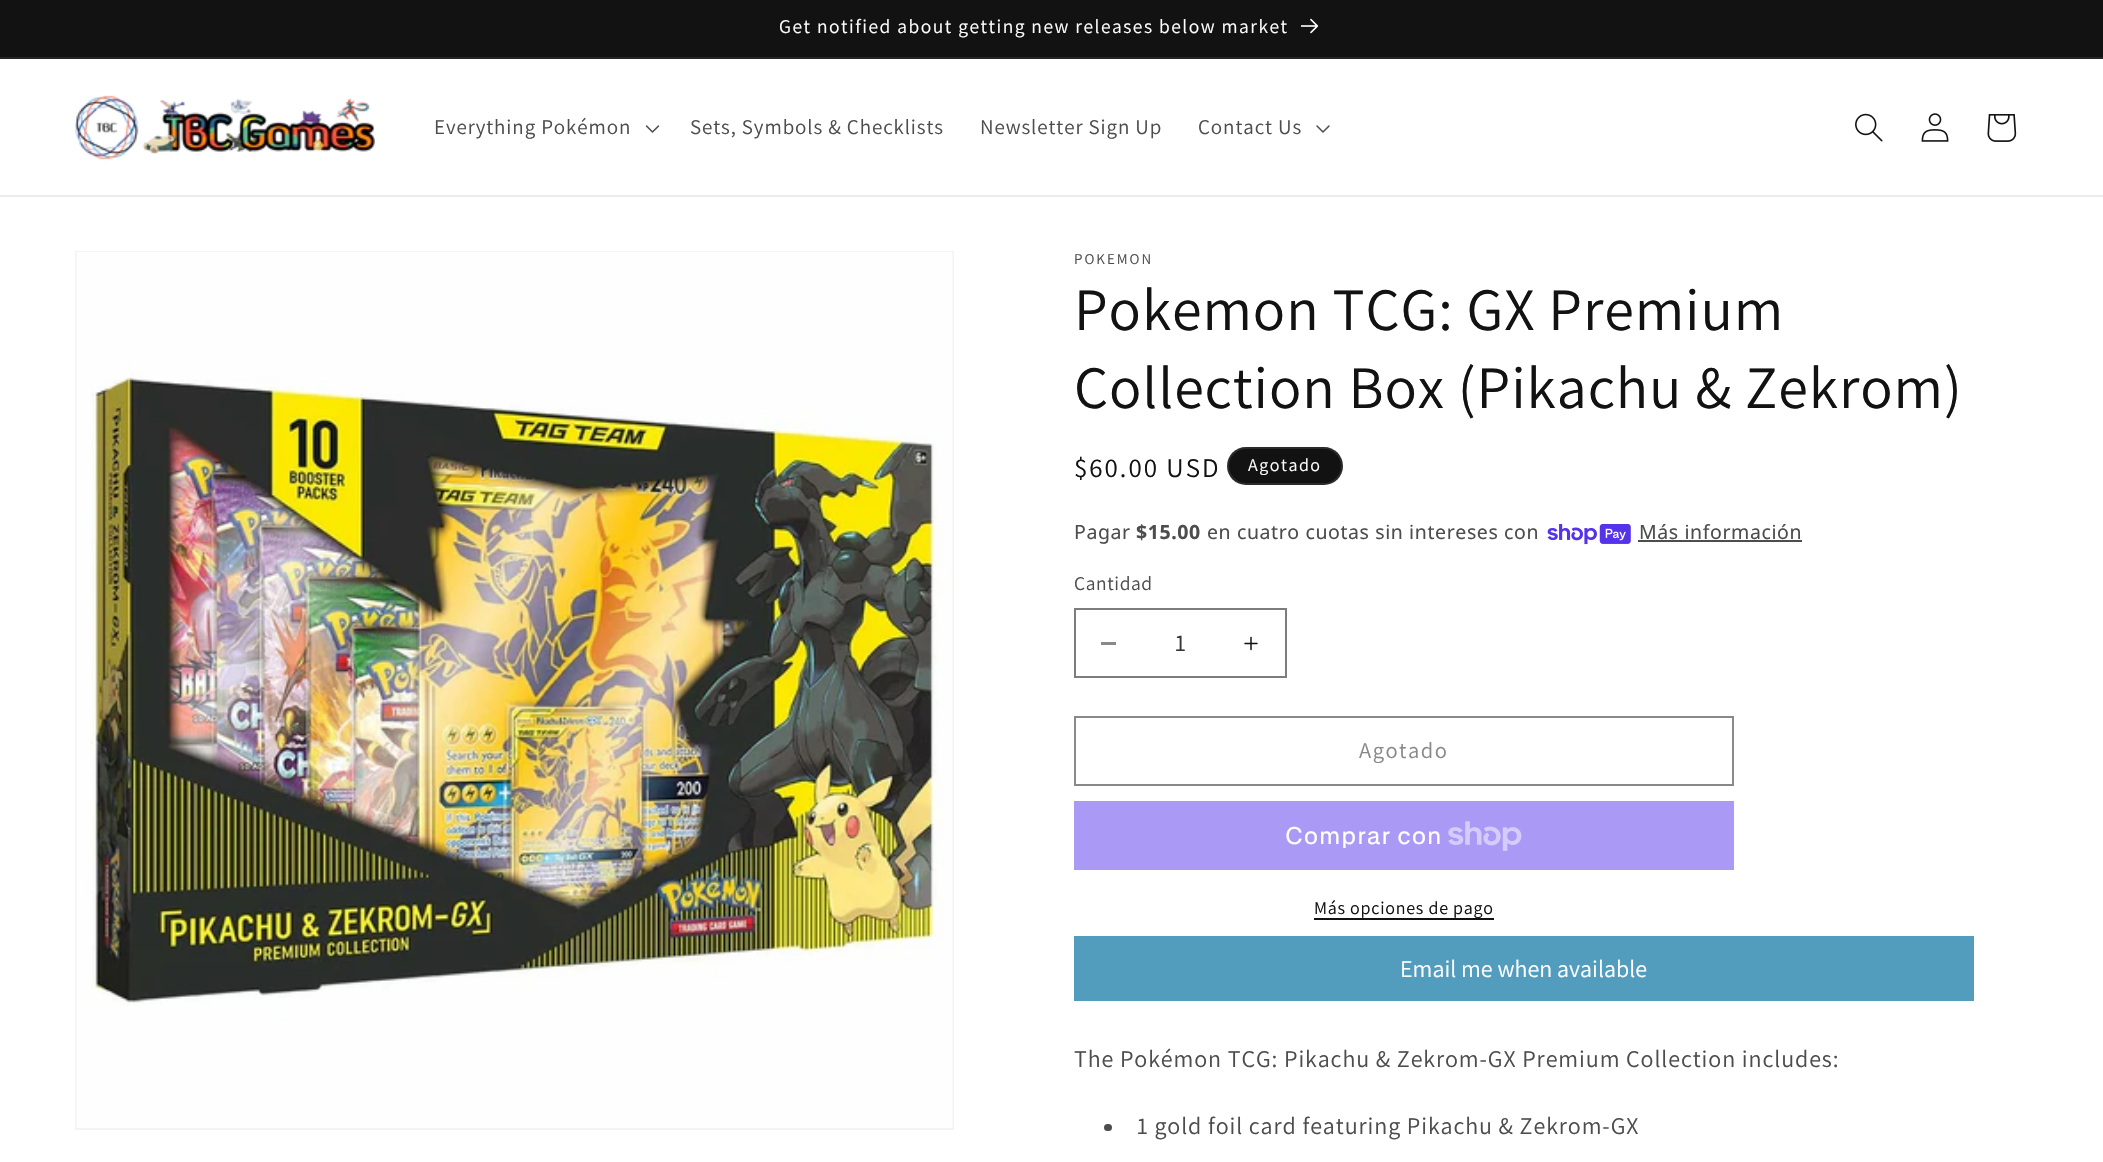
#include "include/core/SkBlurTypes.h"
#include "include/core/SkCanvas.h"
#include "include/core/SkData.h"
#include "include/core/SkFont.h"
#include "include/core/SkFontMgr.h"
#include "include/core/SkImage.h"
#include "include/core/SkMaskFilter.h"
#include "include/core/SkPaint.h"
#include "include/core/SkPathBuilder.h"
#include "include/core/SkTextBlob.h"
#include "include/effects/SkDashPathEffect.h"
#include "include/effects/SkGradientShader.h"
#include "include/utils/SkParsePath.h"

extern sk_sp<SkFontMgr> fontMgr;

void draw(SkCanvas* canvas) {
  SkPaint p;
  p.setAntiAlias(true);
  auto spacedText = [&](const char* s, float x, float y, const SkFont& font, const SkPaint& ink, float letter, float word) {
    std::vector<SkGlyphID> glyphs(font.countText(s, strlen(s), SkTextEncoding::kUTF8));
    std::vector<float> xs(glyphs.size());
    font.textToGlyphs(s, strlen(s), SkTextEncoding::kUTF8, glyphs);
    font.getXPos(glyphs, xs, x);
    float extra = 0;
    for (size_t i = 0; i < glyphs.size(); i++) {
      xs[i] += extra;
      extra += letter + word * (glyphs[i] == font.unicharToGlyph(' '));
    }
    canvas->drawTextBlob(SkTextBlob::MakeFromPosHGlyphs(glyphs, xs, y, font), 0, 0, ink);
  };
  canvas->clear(SK_ColorWHITE);
  p.setColor(SkColorSetRGB(18, 18, 18));
  canvas->drawRect(SkRect::MakeLTRB(0, 0, 2103, 57), p);
  p.setColor(SkColorSetRGB(37, 37, 37));
  canvas->drawRect(SkRect::MakeLTRB(0, 57, 2103, 59), p);
  canvas->drawImageRect(SkImages::DeferredFromEncodedData(SkData::MakeFromFileName("images/1.png")), SkRect::MakeLTRB(1301, 18, 1319, 34), SkSamplingOptions());
  p.setColor(SkColorSetRGB(236, 236, 236));
  canvas->drawRect(SkRect::MakeLTRB(0, 195, 2103, 197), p);
  canvas->drawImageRect(SkImages::DeferredFromEncodedData(SkData::MakeFromFileName("images/2.png")), SkRect::MakeLTRB(75, 95, 375, 161), SkSamplingOptions());
  canvas->drawImageRect(SkImages::DeferredFromEncodedData(SkData::MakeFromFileName("images/3.png")), SkRect::MakeLTRB(645, 125, 660, 133), SkSamplingOptions());
  canvas->drawImageRect(SkImages::DeferredFromEncodedData(SkData::MakeFromFileName("images/4.png")), SkRect::MakeLTRB(1316, 125, 1330, 133), SkSamplingOptions());
  canvas->drawImageRect(SkImages::DeferredFromEncodedData(SkData::MakeFromFileName("images/5.png")), SkRect::MakeLTRB(1855, 113, 1883, 142), SkSamplingOptions());
  canvas->drawImageRect(SkImages::DeferredFromEncodedData(SkData::MakeFromFileName("images/6.png")), SkRect::MakeLTRB(1921, 113, 1949, 142), SkSamplingOptions());
  canvas->drawImageRect(SkImages::DeferredFromEncodedData(SkData::MakeFromFileName("images/7.png")), SkRect::MakeLTRB(1987, 114, 2017, 142), SkSamplingOptions());
  p.setStyle(SkPaint::kStroke_Style);
  p.setStrokeWidth(2);
  p.setColor(SkColorSetRGB(243, 243, 243));
  canvas->drawRect(SkRect::MakeLTRB(76, 252, 953, 1129), p);
  canvas->drawImageRect(SkImages::DeferredFromEncodedData(SkData::MakeFromFileName("images/8.png")), SkRect::MakeLTRB(76, 252, 953, 1128), SkSamplingOptions());
  p.setStyle(SkPaint::kFill_Style);
  p.setColor(SkColorSetRGB(18, 18, 18));
  canvas->drawRoundRect(SkRect::MakeLTRB(1227, 447, 1343, 485), 19, 19, p);
  p.setStyle(SkPaint::kStroke_Style);
  p.setColor(SkColorSetARGB(26, 255, 255, 255));
  canvas->drawRoundRect(SkRect::MakeLTRB(1228, 448, 1342, 484), 18, 18, p);
  canvas->drawImageRect(SkImages::DeferredFromEncodedData(SkData::MakeFromFileName("images/9.png")), SkRect::MakeLTRB(1547, 524, 1631, 545), SkSamplingOptions());
  p.setStyle(SkPaint::kFill_Style);
  p.setColor(SkColorSetRGB(77, 77, 77));
  canvas->drawRect(SkRect::MakeLTRB(1638, 540, 1802, 542), p);
  p.setColor(SkColorSetRGB(137, 137, 137));
  canvas->drawRect(SkRect::MakeLTRB(1101, 642, 1116, 645), p);
  canvas->drawImageRect(SkImages::DeferredFromEncodedData(SkData::MakeFromFileName("images/10.png")), SkRect::MakeLTRB(1244, 636, 1258, 651), SkSamplingOptions());
  p.setStyle(SkPaint::kStroke_Style);
  p.setColor(SkColorSetRGB(125, 125, 125));
  canvas->drawRect(SkRect::MakeLTRB(1075, 609, 1286, 677), p);
  p.setColor(SkColorSetRGB(137, 137, 137));
  canvas->drawRect(SkRect::MakeLTRB(1075, 717, 1733, 785), p);
  p.setStyle(SkPaint::kFill_Style);
  p.setColor(SkColorSetRGB(170, 153, 245));
  canvas->drawRect(SkRect::MakeLTRB(1074, 801, 1734, 870), p);
  canvas->drawImageRect(SkImages::DeferredFromEncodedData(SkData::MakeFromFileName("images/11.png")), SkRect::MakeLTRB(1448, 821, 1522, 851), SkSamplingOptions());
  p.setColor(SkColorSetRGB(18, 18, 18));
  canvas->drawRect(SkRect::MakeLTRB(1314, 918, 1494, 920), p);
  p.setColor(SkColorSetRGB(82, 157, 189));
  canvas->drawRect(SkRect::MakeLTRB(1074, 936, 1974, 1001), p);
  p.setColor(SkColorSetRGB(77, 77, 77));
  canvas->drawRoundRect(SkRect::MakeLTRB(1104, 1124, 1112, 1131), 3.5f, 3.5f, p);
  SkFont font1(fontMgr->matchFamilyStyle("Assistant", SkFontStyle::Normal()), 19.5f);
  font1.setSubpixel(true);
  p.setColor(SK_ColorWHITE);
  spacedText("Get notified about getting new releases below market", 779, 33, font1, p, 1.5f, 0);
  SkFont font2(fontMgr->matchFamilyStyle("Assistant", SkFontStyle::Normal()), 21);
  font2.setSubpixel(true);
  p.setColor(SkColorSetRGB(77, 77, 77));
  spacedText("Everything Pokémon", 434, 134, font2, p, 0.9f, 0);
  spacedText("Sets, Symbols & Checklists", 690, 134, font2, p, 0.9f, 0);
  spacedText("Newsletter Sign Up", 980, 134, font2, p, 0.9f, 0);
  spacedText("Contact Us", 1198, 134, font2, p, 0.9f, 0);
  SkFont font3(fontMgr->matchFamilyStyle("Assistant", SkFontStyle::Normal()), 15);
  font3.setSubpixel(true);
  spacedText("POKEMON", 1074, 264, font3, p, 2, 0);
  SkFont font4(fontMgr->matchFamilyStyle("Assistant", SkFontStyle::Normal()), 60);
  font4.setSubpixel(true);
  p.setColor(SkColorSetRGB(18, 18, 18));
  spacedText("Pokemon TCG: GX Premium", 1074, 330, font4, p, 0.9f, 0);
  spacedText("Collection Box (Pikachu & Zekrom)", 1074, 408, font4, p, 0.9f, 0);
  SkFont font5(fontMgr->matchFamilyStyle("Assistant", SkFontStyle::Normal()), 27);
  font5.setSubpixel(true);
  spacedText("$60.00 USD", 1074, 477, font5, p, 2, 0);
  SkFont font6(fontMgr->matchFamilyStyle("Assistant", SkFontStyle::Normal()), 18);
  font6.setSubpixel(true);
  p.setColor(SK_ColorWHITE);
  spacedText("Agotado", 1248, 471, font6, p, 1.5f, 0);
  SkFont font7(fontMgr->matchFamilyStyle("Noto Sans", SkFontStyle::Normal()), 19.5f);
  font7.setSubpixel(true);
  p.setColor(SkColorSetRGB(77, 77, 77));
  spacedText("Pagar", 1074, 539, font7, p, 0.6f, 0);
  SkFont font8(fontMgr->matchFamilyStyle("Noto Sans", SkFontStyle::Bold()), 19.5f);
  font8.setSubpixel(true);
  spacedText("$15.00", 1136, 539, font8, p, 0.6f, 0);
  spacedText("en cuatro cuotas sin intereses con", 1207, 539, font7, p, 0.6f, 0);
  spacedText("Más información", 1639, 539, font7, p, 0.6f, 0);
  spacedText("Cantidad", 1074, 590, font1, p, 0.6f, 0);
  SkFont font9(fontMgr->matchFamilyStyle("Assistant", SkFontStyle::Normal()), 24);
  font9.setSubpixel(true);
  p.setColor(SkColorSetRGB(54, 54, 54));
  canvas->drawString("1", 1175, 651, font9, p);
  SkFont font10(fontMgr->matchFamilyStyle("Assistant", SkFontStyle::Normal()), 22.5f);
  font10.setSubpixel(true);
  p.setColor(SkColorSetRGB(137, 137, 137));
  spacedText("Agotado", 1359, 758, font10, p, 1.5f, 0);
  SkFont font11(fontMgr->matchFamilyStyle("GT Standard", SkFontStyle::Normal()), 24);
  font11.setSubpixel(true);
  p.setColor(SK_ColorWHITE);
  spacedText("Comprar con", 1285, 844, font11, p, 0.9f, 0);
  p.setColor(SkColorSetRGB(18, 18, 18));
  spacedText("Más opciones de pago", 1314, 914, font6, p, 0.75f, 0);
  p.setColor(SK_ColorWHITE);
  canvas->drawString("Email me when available", 1400, 977, font9, p);
  p.setColor(SkColorSetRGB(77, 77, 77));
  spacedText("The Pokémon TCG: Pikachu & Zekrom-GX Premium Collection includes:", 1074, 1067, font9, p, 0.9f, 0);
  spacedText("1 gold foil card featuring Pikachu & Zekrom-GX", 1137, 1134, font9, p, 0.9f, 0);
}
